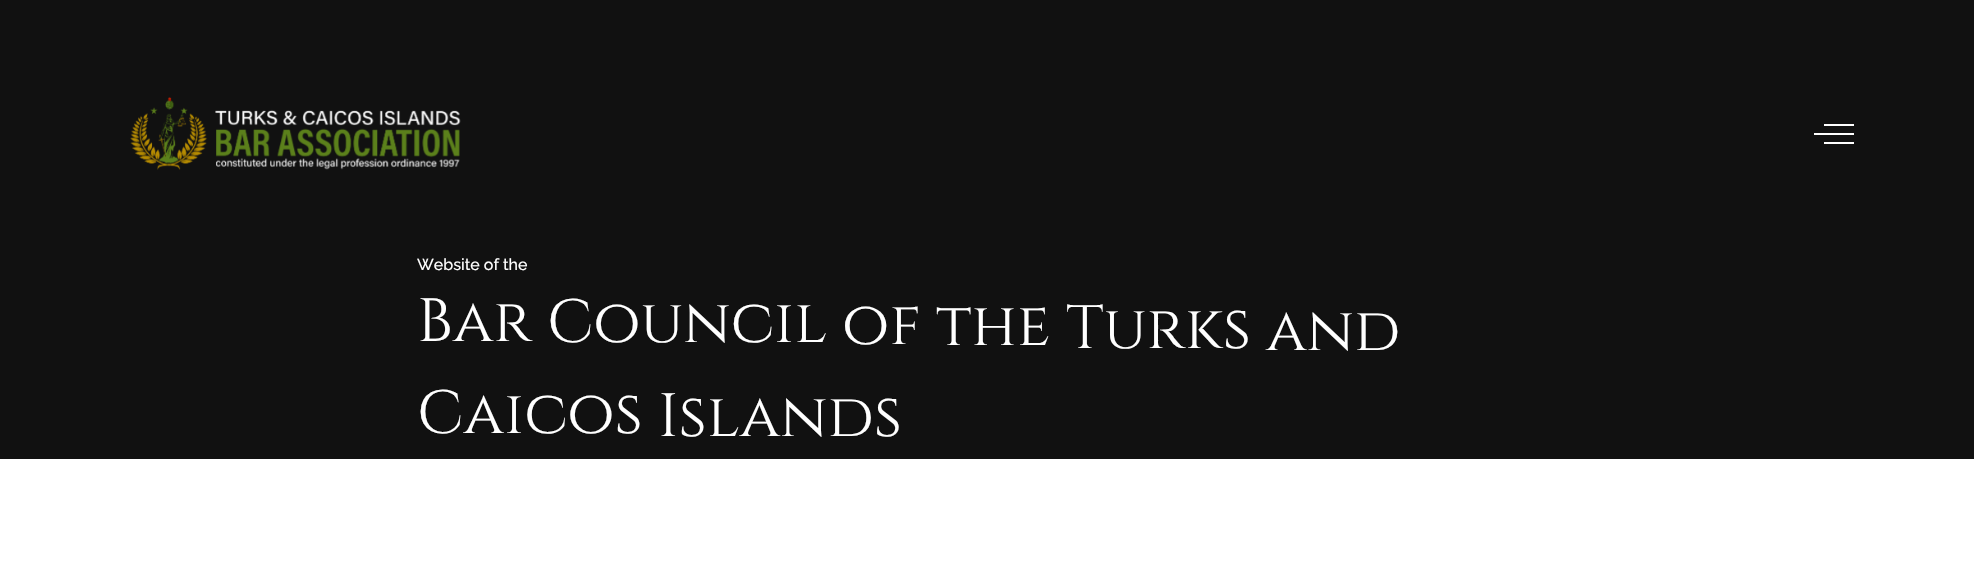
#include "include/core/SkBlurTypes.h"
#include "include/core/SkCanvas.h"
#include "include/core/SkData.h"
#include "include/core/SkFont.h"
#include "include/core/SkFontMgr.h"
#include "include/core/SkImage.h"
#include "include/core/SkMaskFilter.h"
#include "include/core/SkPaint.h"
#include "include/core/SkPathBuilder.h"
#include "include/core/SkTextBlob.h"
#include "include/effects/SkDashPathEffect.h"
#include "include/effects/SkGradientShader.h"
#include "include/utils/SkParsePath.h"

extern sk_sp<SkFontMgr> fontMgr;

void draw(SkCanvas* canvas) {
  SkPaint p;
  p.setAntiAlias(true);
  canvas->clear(SK_ColorWHITE);
  p.setColor(SkColorSetRGB(17, 17, 17));
  canvas->drawRect(SkRect::MakeLTRB(0, 0, 1974, 459), p);
  canvas->drawImageRect(SkImages::DeferredFromEncodedData(SkData::MakeFromFileName("images/1.png")), SkRect::MakeLTRB(130, 97, 461, 170), SkSamplingOptions());
  p.setColor(SK_ColorWHITE);
  canvas->drawRect(SkRect::MakeLTRB(1824, 124, 1854, 126), p);
  canvas->drawRect(SkRect::MakeLTRB(1814, 133, 1854, 135), p);
  canvas->drawRect(SkRect::MakeLTRB(1824, 142, 1854, 144), p);
  SkFont font1(fontMgr->matchFamilyStyle("Raleway", SkFontStyle(500, SkFontStyle::kNormal_Width, SkFontStyle::kUpright_Slant)), 16);
  font1.setSubpixel(true);
  canvas->drawString("Website of the", 417, 270, font1, p);
  SkFont font2(fontMgr->matchFamilyStyle("Cinzel", SkFontStyle::Normal()), 61);
  font2.setSubpixel(true);
  canvas->drawString("Bar", 417, 341, font2, p);
  canvas->drawString("Council", 547, 342, font2, p);
  canvas->drawString("of", 842, 344, font2, p);
  canvas->drawString("the", 936, 345, font2, p);
  canvas->drawString("Turks", 1066, 348, font2, p);
  canvas->drawString("and", 1266, 350, font2, p);
  canvas->drawString("Caicos", 417, 433, font2, p);
  canvas->drawString("Islands", 658, 436, font2, p);
}
